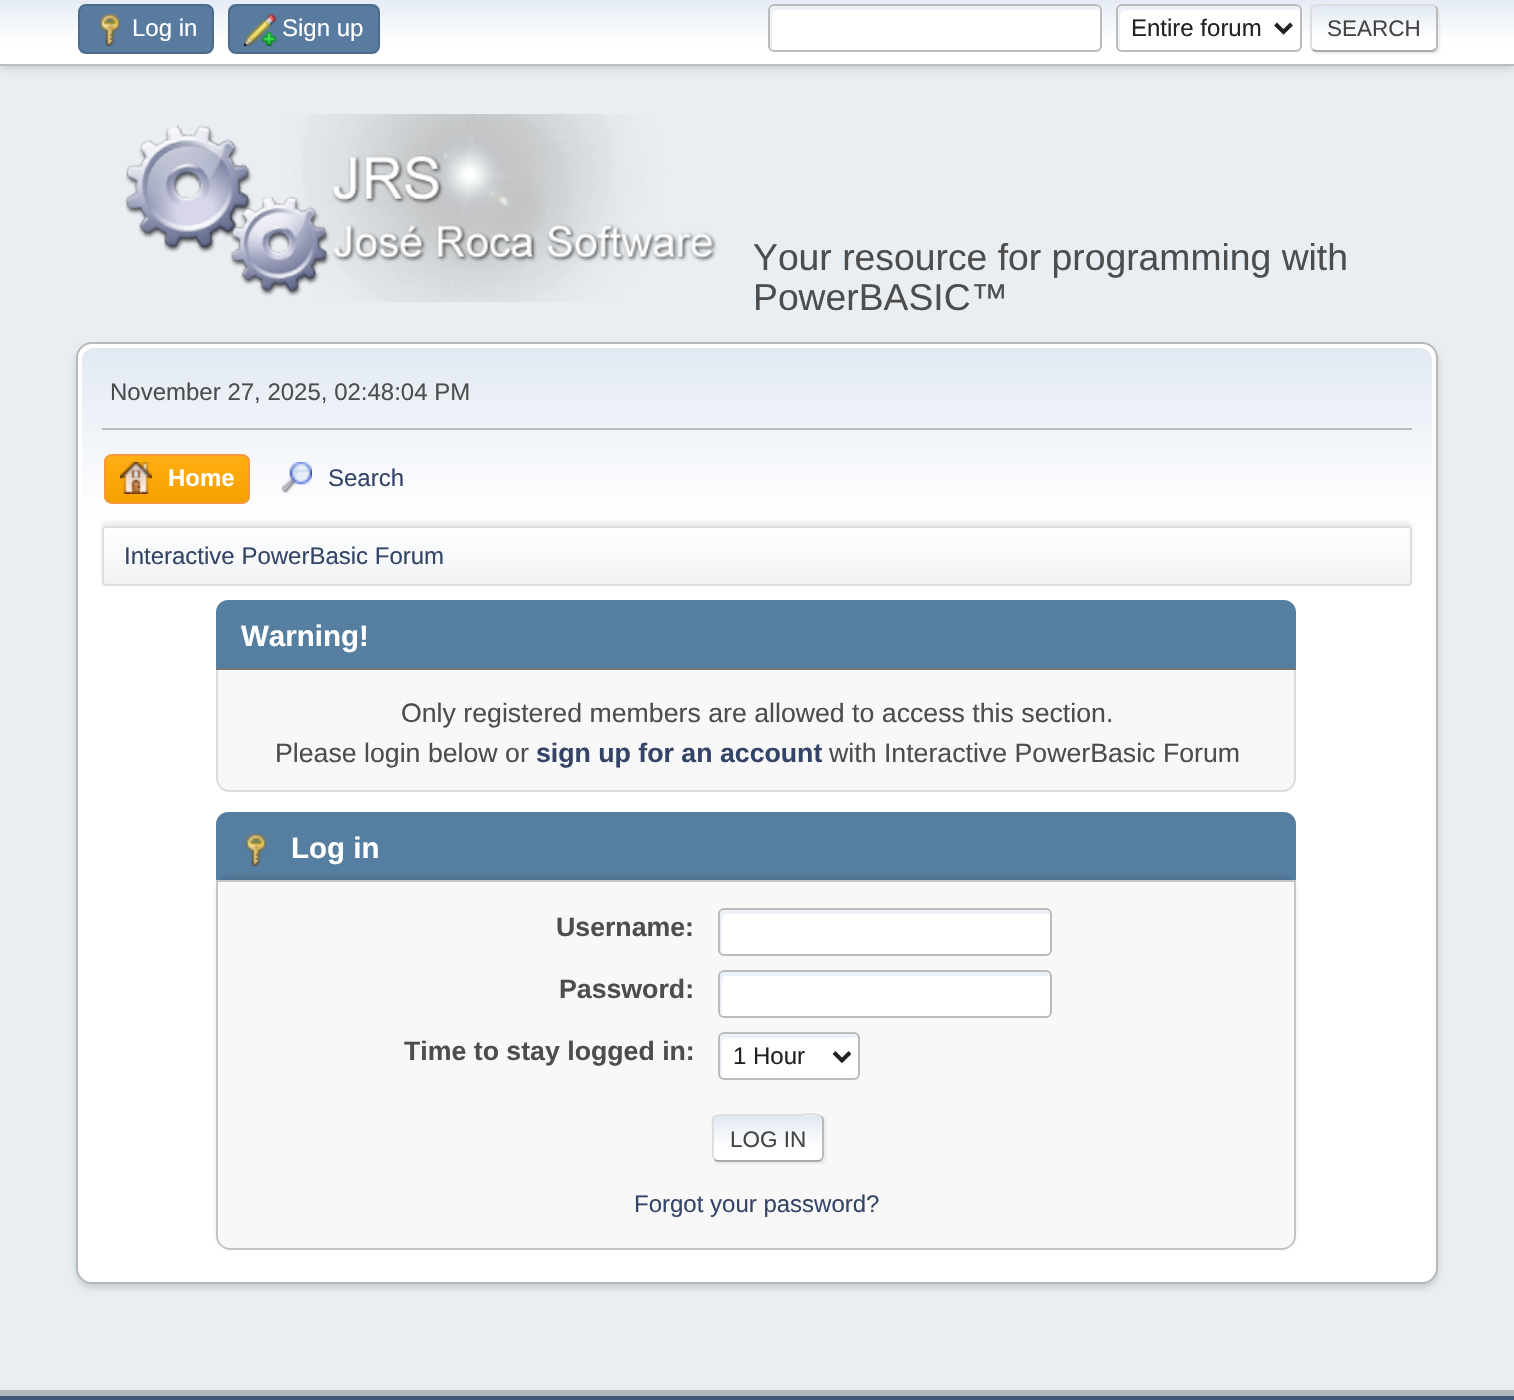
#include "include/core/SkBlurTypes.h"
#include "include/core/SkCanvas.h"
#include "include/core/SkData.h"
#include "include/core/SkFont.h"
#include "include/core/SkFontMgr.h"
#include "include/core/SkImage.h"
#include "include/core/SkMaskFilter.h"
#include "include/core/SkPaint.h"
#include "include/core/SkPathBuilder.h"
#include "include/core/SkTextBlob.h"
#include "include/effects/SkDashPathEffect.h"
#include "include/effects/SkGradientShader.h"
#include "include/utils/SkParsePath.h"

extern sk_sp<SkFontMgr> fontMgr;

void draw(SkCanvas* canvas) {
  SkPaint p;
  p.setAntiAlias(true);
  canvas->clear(SkColorSetRGB(233, 238, 242));
  p.setColor(SkColorSetARGB(41, 0, 0, 0));
  p.setMaskFilter(SkMaskFilter::MakeBlur(kNormal_SkBlurStyle, 4));
  canvas->drawRect(SkRect::MakeLTRB(0, -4, 1514, 68), p);
  p.setMaskFilter(nullptr);
  {
    const SkColor colors[] = {SkColorSetRGB(226, 233, 243), SK_ColorWHITE};
    const float stops[] = {0, 0.7f};
    const SkPoint ends[] = {{757, -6}, {757, 64}};
    p.setShader(SkGradientShader::MakeLinear(ends, colors, stops, 2, SkTileMode::kClamp));
    p.setAlpha(255);
  }
  canvas->drawRect(SkRect::MakeLTRB(0, 0, 1514, 64), p);
  p.setShader(nullptr);
  p.setColor(SkColorSetRGB(187, 187, 187));
  canvas->drawRect(SkRect::MakeLTRB(0, 64, 1514, 66), p);
  p.setColor(SkColorSetRGB(89, 123, 159));
  canvas->drawRoundRect(SkRect::MakeLTRB(79, 5, 213, 53), 7, 7, p);
  p.setStyle(SkPaint::kStroke_Style);
  p.setStrokeWidth(2);
  p.setColor(SkColorSetRGB(74, 107, 140));
  canvas->drawRoundRect(SkRect::MakeLTRB(79, 5, 213, 53), 7, 7, p);
  canvas->drawImageRect(SkImages::DeferredFromEncodedData(SkData::MakeFromFileName("images/1.png")), SkRect::MakeLTRB(99, 14, 121, 46), SkSamplingOptions());
  p.setStyle(SkPaint::kFill_Style);
  p.setColor(SkColorSetRGB(89, 123, 159));
  canvas->drawRoundRect(SkRect::MakeLTRB(229, 5, 379, 53), 7, 7, p);
  p.setStyle(SkPaint::kStroke_Style);
  p.setColor(SkColorSetRGB(74, 107, 140));
  canvas->drawRoundRect(SkRect::MakeLTRB(229, 5, 379, 53), 7, 7, p);
  canvas->drawImageRect(SkImages::DeferredFromEncodedData(SkData::MakeFromFileName("images/2.png")), SkRect::MakeLTRB(244, 14, 276, 46), SkSamplingOptions());
  p.setStyle(SkPaint::kFill_Style);
  p.setColor(SK_ColorWHITE);
  canvas->drawRoundRect(SkRect::MakeLTRB(768, 4, 1102, 52), 6, 6, p);
  p.setColor(SkColorSetRGB(236, 241, 248));
  canvas->drawPath(SkPathBuilder().moveTo(776, 10).lineTo(1098, 10).lineTo(1100, 11).lineTo(1100, 10).cubicTo(1100, 8, 1098, 6, 1096, 6).lineTo(774, 6).cubicTo(772, 6, 770, 8, 770, 10).lineTo(770, 46).cubicTo(770, 47, 771, 49, 772, 49).lineTo(772, 14).cubicTo(772, 12, 774, 10, 776, 10).close().detach(), p);
  p.setStyle(SkPaint::kStroke_Style);
  p.setColor(SkColorSetRGB(187, 187, 187));
  canvas->drawRoundRect(SkRect::MakeLTRB(769, 5, 1101, 51), 5, 5, p);
  p.setStyle(SkPaint::kFill_Style);
  p.setColor(SK_ColorWHITE);
  canvas->drawRoundRect(SkRect::MakeLTRB(1116, 4, 1302, 52), 6, 6, p);
  p.setColor(SkColorSetRGB(236, 241, 248));
  canvas->drawPath(SkPathBuilder().moveTo(1124, 10).lineTo(1298, 10).lineTo(1300, 11).lineTo(1300, 10).cubicTo(1300, 8, 1298, 6, 1296, 6).lineTo(1122, 6).cubicTo(1120, 6, 1118, 8, 1118, 10).lineTo(1118, 46).cubicTo(1118, 47, 1119, 49, 1120, 49).lineTo(1120, 14).cubicTo(1120, 12, 1122, 10, 1124, 10).close().detach(), p);
  p.setStyle(SkPaint::kStroke_Style);
  p.setColor(SkColorSetRGB(187, 187, 187));
  canvas->drawRoundRect(SkRect::MakeLTRB(1117, 5, 1301, 51), 5, 5, p);
  p.setStrokeWidth(4);
  p.setColor(SkColorSetRGB(34, 34, 34));
  canvas->drawPath(SkPathBuilder().moveTo(1275.5f, 24).lineTo(1283.5f, 32).lineTo(1291.5f, 24).detach(), p);
  p.setStyle(SkPaint::kFill_Style);
  p.setColor(SkColorSetARGB(145, 221, 221, 221));
  p.setMaskFilter(SkMaskFilter::MakeBlur(kNormal_SkBlurStyle, 1));
  canvas->drawRoundRect(SkRect::MakeLTRB(1312, 6, 1440, 54), 6, 6, p);
  p.setMaskFilter(nullptr);
  canvas->save();
  canvas->clipPath(SkPathBuilder().moveTo(1316, 4).lineTo(1432, 4).cubicTo(1435.5f, 4, 1438, 6.5f, 1438, 10).lineTo(1438, 46).cubicTo(1438, 49.5f, 1435.5f, 52, 1432, 52).lineTo(1316, 52).cubicTo(1312.5f, 52, 1310, 49.5f, 1310, 46).lineTo(1310, 10).cubicTo(1310, 6.5f, 1312.5f, 4, 1316, 4).close().detach(), true);
  {
    const SkColor colors[] = {SkColorSetRGB(226, 233, 243), SK_ColorWHITE};
    const float stops[] = {0, 0.7f};
    const SkPoint ends[] = {{1374, 6}, {1374, 50}};
    p.setShader(SkGradientShader::MakeLinear(ends, colors, stops, 2, SkTileMode::kClamp));
    p.setAlpha(255);
  }
  canvas->drawRect(SkRect::MakeLTRB(1310, 6, 1438, 50), p);
  {
    const SkColor colors[] = {SkColorSetRGB(226, 233, 243), SK_ColorWHITE};
    const float stops[] = {0, 0.7f};
    const SkPoint ends[] = {{1374, 50}, {1374, 94}};
    p.setShader(SkGradientShader::MakeLinear(ends, colors, stops, 2, SkTileMode::kClamp));
    p.setAlpha(255);
  }
  canvas->drawRect(SkRect::MakeLTRB(1310, 50, 1438, 52), p);
  canvas->restore();
  p.setStyle(SkPaint::kStroke_Style);
  p.setStrokeWidth(2);
  p.setShader(nullptr);
  p.setColor(SkColorSetRGB(187, 187, 187));
  canvas->drawPath(SkPathBuilder().moveTo(1435.5f, 6.5f).cubicTo(1436.5f, 7.5f, 1437, 8.5f, 1437, 10).lineTo(1437, 46).cubicTo(1437, 47.5f, 1436.5f, 48.5f, 1435.5f, 49.5f).detach(), p);
  p.setColor(SkColorSetRGB(170, 170, 170));
  canvas->drawPath(SkPathBuilder().moveTo(1435.5f, 49.5f).lineTo(1432.5f, 51).lineTo(1315.5f, 51).lineTo(1312.5f, 49.5f).detach(), p);
  p.setColor(SkColorSetRGB(221, 221, 221));
  canvas->drawPath(SkPathBuilder().moveTo(1312.5f, 49.5f).cubicTo(1310, 47, 1311, 42.5f, 1311, 40).lineTo(1311, 28).cubicTo(1311, 1, 1307, 5, 1335.5f, 5).lineTo(1432, 5).cubicTo(1433.5f, 5, 1434.5f, 5.5f, 1435.5f, 6.5f).detach(), p);
  canvas->drawImageRect(SkImages::DeferredFromEncodedData(SkData::MakeFromFileName("images/3.png")), SkRect::MakeLTRB(125, 114, 717, 302), SkSamplingOptions());
  p.setStyle(SkPaint::kFill_Style);
  p.setColor(SkColorSetARGB(36, 0, 0, 0));
  p.setMaskFilter(SkMaskFilter::MakeBlur(kNormal_SkBlurStyle, 3));
  canvas->drawRoundRect(SkRect::MakeLTRB(76, 346, 1438, 1288), 16, 16, p);
  p.setMaskFilter(nullptr);
  p.setColor(SK_ColorWHITE);
  canvas->drawRoundRect(SkRect::MakeLTRB(77, 343, 1437, 1283), 15, 15, p);
  p.setStyle(SkPaint::kStroke_Style);
  p.setColor(SkColorSetRGB(184, 184, 184));
  canvas->drawRoundRect(SkRect::MakeLTRB(77, 343, 1437, 1283), 15, 15, p);
  p.setStyle(SkPaint::kFill_Style);
  {
    const SkColor colors[] = {SkColorSetRGB(226, 233, 243), SK_ColorWHITE};
    const float stops[] = {0, 0.7f};
    const SkPoint ends[] = {{757, 348}, {757, 590}};
    p.setShader(SkGradientShader::MakeLinear(ends, colors, stops, 2, SkTileMode::kClamp));
    p.setAlpha(255);
  }
  canvas->drawPath(SkPathBuilder().moveTo(94, 348).lineTo(1420, 348).cubicTo(1426.5f, 348, 1432, 353.5f, 1432, 360).lineTo(1432, 590).lineTo(82, 590).lineTo(82, 360).cubicTo(82, 353.5f, 87.5f, 348, 94, 348).close().detach(), p);
  p.setShader(nullptr);
  p.setColor(SkColorSetRGB(187, 187, 187));
  canvas->drawRect(SkRect::MakeLTRB(102, 428, 1412, 430), p);
  canvas->save();
  canvas->clipPath(SkPathBuilder().moveTo(112, 454).lineTo(242, 454).cubicTo(246.5f, 454, 250, 457.5f, 250, 462).lineTo(250, 496).cubicTo(250, 500.5f, 246.5f, 504, 242, 504).lineTo(112, 504).cubicTo(107.5f, 504, 104, 500.5f, 104, 496).lineTo(104, 462).cubicTo(104, 457.5f, 107.5f, 454, 112, 454).close().detach(), true);
  {
    const SkColor colors[] = {SkColorSetRGB(255, 174, 20), SkColorSetRGB(245, 161, 0)};
    const float stops[] = {0, 1};
    const SkPoint ends[] = {{177, 456}, {177, 502}};
    p.setShader(SkGradientShader::MakeLinear(ends, colors, stops, 2, SkTileMode::kClamp));
    p.setAlpha(255);
  }
  canvas->drawRect(SkRect::MakeLTRB(104, 456, 250, 502), p);
  canvas->restore();
  p.setStyle(SkPaint::kStroke_Style);
  p.setShader(nullptr);
  p.setColor(SkColorSetRGB(244, 154, 58));
  canvas->drawRoundRect(SkRect::MakeLTRB(105, 455, 249, 503), 7, 7, p);
  canvas->drawImageRect(SkImages::DeferredFromEncodedData(SkData::MakeFromFileName("images/4.png")), SkRect::MakeLTRB(120, 462, 152, 494), SkSamplingOptions());
  canvas->drawImageRect(SkImages::DeferredFromEncodedData(SkData::MakeFromFileName("images/5.png")), SkRect::MakeLTRB(281, 462, 312, 493), SkSamplingOptions());
  p.setStyle(SkPaint::kFill_Style);
  p.setColor(SkColorSetARGB(20, 0, 0, 0));
  p.setMaskFilter(SkMaskFilter::MakeBlur(kNormal_SkBlurStyle, 2));
  canvas->drawRoundRect(SkRect::MakeLTRB(102, 522, 1412, 582), 4, 4, p);
  p.setMaskFilter(nullptr);
  canvas->save();
  canvas->clipPath(SkPathBuilder().moveTo(106, 526).lineTo(1408, 526).cubicTo(1410, 526, 1412, 528, 1412, 530).lineTo(1412, 582).cubicTo(1412, 584, 1410, 586, 1408, 586).lineTo(106, 586).cubicTo(104, 586, 102, 584, 102, 582).lineTo(102, 530).cubicTo(102, 528, 104, 526, 106, 526).close().detach(), true);
  {
    const SkColor colors[] = {SK_ColorWHITE, SkColorSetRGB(241, 243, 245)};
    const float stops[] = {0, 0.95f};
    const SkPoint ends[] = {{757, 528}, {757, 584}};
    p.setShader(SkGradientShader::MakeLinear(ends, colors, stops, 2, SkTileMode::kClamp));
    p.setAlpha(255);
  }
  canvas->drawRect(SkRect::MakeLTRB(102, 528, 1412, 584), p);
  canvas->restore();
  p.setStyle(SkPaint::kStroke_Style);
  p.setShader(nullptr);
  p.setColor(SkColorSetRGB(221, 221, 221));
  canvas->drawRoundRect(SkRect::MakeLTRB(103, 527, 1411, 585), 3, 3, p);
  p.setStyle(SkPaint::kFill_Style);
  p.setColor(SkColorSetRGB(85, 126, 160));
  canvas->drawPath(SkPathBuilder().moveTo(228, 600).lineTo(1284, 600).cubicTo(1290.5f, 600, 1296, 605.5f, 1296, 612).lineTo(1296, 670).lineTo(216, 670).lineTo(216, 612).cubicTo(216, 605.5f, 221.5f, 600, 228, 600).close().detach(), p);
  p.setColor(SkColorSetRGB(119, 119, 119));
  canvas->drawRect(SkRect::MakeLTRB(216, 668, 1296, 670), p);
  p.setColor(SkColorSetRGB(248, 248, 248));
  canvas->drawPath(SkPathBuilder().moveTo(216, 670).lineTo(1296, 670).lineTo(1296, 778).cubicTo(1296, 785.5f, 1289.5f, 792, 1282, 792).lineTo(230, 792).cubicTo(222.5f, 792, 216, 785.5f, 216, 778).close().detach(), p);
  p.setColor(SkColorSetRGB(221, 221, 221));
  canvas->drawPath(SkPathBuilder(SkPathFillType::kEvenOdd).moveTo(216, 670).lineTo(1296, 670).lineTo(1296, 778).cubicTo(1296, 786, 1290, 792, 1282, 792).lineTo(230, 792).cubicTo(222, 792, 216, 786, 216, 778).close().moveTo(218, 670).lineTo(1294, 670).lineTo(1294, 778).cubicTo(1294, 785, 1289, 790, 1282, 790).lineTo(230, 790).cubicTo(223, 790, 218, 785, 218, 778).close().detach(), p);
  p.setColor(SkColorSetRGB(85, 126, 160));
  canvas->drawPath(SkPathBuilder().moveTo(228, 812).lineTo(1284, 812).cubicTo(1290.5f, 812, 1296, 817.5f, 1296, 824).lineTo(1296, 882).lineTo(216, 882).lineTo(216, 824).cubicTo(216, 817.5f, 221.5f, 812, 228, 812).close().detach(), p);
  canvas->drawImageRect(SkImages::DeferredFromEncodedData(SkData::MakeFromFileName("images/6.png")), SkRect::MakeLTRB(245, 834, 267, 866), SkSamplingOptions());
  p.setColor(SkColorSetARGB(26, 0, 0, 0));
  p.setMaskFilter(SkMaskFilter::MakeBlur(kNormal_SkBlurStyle, 2));
  canvas->drawRoundRect(SkRect::MakeLTRB(216, 876, 1296, 1246), 14, 14, p);
  p.setMaskFilter(nullptr);
  p.setColor(SkColorSetRGB(248, 248, 248));
  canvas->drawPath(SkPathBuilder().moveTo(217, 881).lineTo(1295, 881).lineTo(1295, 1236).cubicTo(1295, 1243, 1289, 1249, 1282, 1249).lineTo(230, 1249).cubicTo(223, 1249, 217, 1243, 217, 1236).close().detach(), p);
  p.setStyle(SkPaint::kStroke_Style);
  p.setColor(SkColorSetRGB(197, 197, 197));
  canvas->drawPath(SkPathBuilder().moveTo(217, 881).lineTo(1295, 881).lineTo(1295, 1236).cubicTo(1295, 1243, 1289, 1249, 1282, 1249).lineTo(230, 1249).cubicTo(223, 1249, 217, 1243, 217, 1236).close().detach(), p);
  p.setStyle(SkPaint::kFill_Style);
  p.setColor(SK_ColorWHITE);
  canvas->drawRoundRect(SkRect::MakeLTRB(718, 908, 1052, 956), 6, 6, p);
  p.setColor(SkColorSetRGB(236, 241, 248));
  canvas->drawPath(SkPathBuilder().moveTo(726, 914).lineTo(1048, 914).lineTo(1050, 915).lineTo(1050, 914).cubicTo(1050, 912, 1048, 910, 1046, 910).lineTo(724, 910).cubicTo(722, 910, 720, 912, 720, 914).lineTo(720, 950).cubicTo(720, 951, 721, 953, 722, 953).lineTo(722, 918).cubicTo(722, 916, 724, 914, 726, 914).close().detach(), p);
  p.setStyle(SkPaint::kStroke_Style);
  p.setColor(SkColorSetRGB(187, 187, 187));
  canvas->drawRoundRect(SkRect::MakeLTRB(719, 909, 1051, 955), 5, 5, p);
  p.setStyle(SkPaint::kFill_Style);
  p.setColor(SK_ColorWHITE);
  canvas->drawRoundRect(SkRect::MakeLTRB(718, 970, 1052, 1018), 6, 6, p);
  p.setColor(SkColorSetRGB(236, 241, 248));
  canvas->drawPath(SkPathBuilder().moveTo(726, 976).lineTo(1048, 976).lineTo(1050, 977).lineTo(1050, 976).cubicTo(1050, 974, 1048, 972, 1046, 972).lineTo(724, 972).cubicTo(722, 972, 720, 974, 720, 976).lineTo(720, 1012).cubicTo(720, 1013, 721, 1015, 722, 1015).lineTo(722, 980).cubicTo(722, 978, 724, 976, 726, 976).close().detach(), p);
  p.setStyle(SkPaint::kStroke_Style);
  p.setColor(SkColorSetRGB(187, 187, 187));
  canvas->drawRoundRect(SkRect::MakeLTRB(719, 971, 1051, 1017), 5, 5, p);
  p.setStyle(SkPaint::kFill_Style);
  p.setColor(SK_ColorWHITE);
  canvas->drawRoundRect(SkRect::MakeLTRB(718, 1032, 860, 1080), 6, 6, p);
  p.setColor(SkColorSetRGB(236, 241, 248));
  canvas->drawPath(SkPathBuilder().moveTo(726, 1038).lineTo(856, 1038).lineTo(858, 1039).lineTo(858, 1038).cubicTo(858, 1036, 856, 1034, 854, 1034).lineTo(724, 1034).cubicTo(722, 1034, 720, 1036, 720, 1038).lineTo(720, 1074).cubicTo(720, 1075, 721, 1077, 722, 1077).lineTo(722, 1042).cubicTo(722, 1040, 724, 1038, 726, 1038).close().detach(), p);
  p.setStyle(SkPaint::kStroke_Style);
  p.setColor(SkColorSetRGB(187, 187, 187));
  canvas->drawRoundRect(SkRect::MakeLTRB(719, 1033, 859, 1079), 5, 5, p);
  p.setStrokeWidth(4);
  p.setColor(SkColorSetRGB(34, 34, 34));
  canvas->drawPath(SkPathBuilder().moveTo(834, 1052.5f).lineTo(842, 1060.5f).lineTo(850, 1052.5f).detach(), p);
  p.setStyle(SkPaint::kFill_Style);
  p.setColor(SkColorSetARGB(145, 221, 221, 221));
  p.setMaskFilter(SkMaskFilter::MakeBlur(kNormal_SkBlurStyle, 1));
  canvas->drawRoundRect(SkRect::MakeLTRB(714, 1116, 826, 1164), 6, 6, p);
  p.setMaskFilter(nullptr);
  canvas->save();
  canvas->clipPath(SkPathBuilder().moveTo(718, 1114).lineTo(818, 1114).cubicTo(821.5f, 1114, 824, 1116.5f, 824, 1120).lineTo(824, 1156).cubicTo(824, 1159.5f, 821.5f, 1162, 818, 1162).lineTo(718, 1162).cubicTo(714.5f, 1162, 712, 1159.5f, 712, 1156).lineTo(712, 1120).cubicTo(712, 1116.5f, 714.5f, 1114, 718, 1114).close().detach(), true);
  {
    const SkColor colors[] = {SkColorSetRGB(226, 233, 243), SK_ColorWHITE};
    const float stops[] = {0, 0.7f};
    const SkPoint ends[] = {{768, 1072}, {768, 1116}};
    p.setShader(SkGradientShader::MakeLinear(ends, colors, stops, 2, SkTileMode::kClamp));
    p.setAlpha(255);
  }
  canvas->drawRect(SkRect::MakeLTRB(712, 1114, 824, 1116), p);
  {
    const SkColor colors[] = {SkColorSetRGB(226, 233, 243), SK_ColorWHITE};
    const float stops[] = {0, 0.7f};
    const SkPoint ends[] = {{768, 1116}, {768, 1160}};
    p.setShader(SkGradientShader::MakeLinear(ends, colors, stops, 2, SkTileMode::kClamp));
    p.setAlpha(255);
  }
  canvas->drawRect(SkRect::MakeLTRB(712, 1116, 824, 1160), p);
  canvas->restore();
  p.setStyle(SkPaint::kStroke_Style);
  p.setStrokeWidth(2);
  p.setShader(nullptr);
  p.setColor(SkColorSetRGB(187, 187, 187));
  canvas->drawPath(SkPathBuilder().moveTo(821.5f, 1116.5f).cubicTo(822.5f, 1117.5f, 823, 1118.5f, 823, 1120).lineTo(823, 1156).cubicTo(823, 1157.5f, 822.5f, 1158.5f, 821.5f, 1159.5f).detach(), p);
  p.setColor(SkColorSetRGB(170, 170, 170));
  canvas->drawPath(SkPathBuilder().moveTo(821.5f, 1159.5f).cubicTo(820.5f, 1160.5f, 819.5f, 1161, 818, 1161).lineTo(718, 1161).cubicTo(716.5f, 1161, 715.5f, 1160.5f, 714.5f, 1159.5f).detach(), p);
  p.setColor(SkColorSetRGB(221, 221, 221));
  canvas->drawPath(SkPathBuilder().moveTo(714.5f, 1159.5f).cubicTo(712, 1157, 713, 1152.5f, 713, 1150).lineTo(713, 1138).cubicTo(713, 1112, 708.5f, 1115, 734.5f, 1115).lineTo(801.5f, 1115).cubicTo(801.5f, 1115, 817.5f, 1112.5f, 821.5f, 1116.5f).detach(), p);
  p.setStyle(SkPaint::kFill_Style);
  p.setColor(SkColorSetRGB(62, 90, 120));
  canvas->drawRect(SkRect::MakeLTRB(0, 1396, 1514, 1400), p);
  p.setColor(SkColorSetRGB(178, 182, 189));
  canvas->drawRect(SkRect::MakeLTRB(0, 1390, 1514, 1396), p);
  SkFont font1(fontMgr->matchFamilyStyle("Liberation Sans", SkFontStyle::Normal()), 24);
  font1.setSubpixel(true);
  p.setColor(SK_ColorWHITE);
  canvas->drawString("Log in", 132, 36, font1, p);
  canvas->drawString("Sign up", 282, 36, font1, p);
  p.setColor(SkColorSetRGB(34, 34, 34));
  canvas->drawString("Entire forum", 1131, 36, font1, p);
  SkFont font2(fontMgr->matchFamilyStyle("Liberation Sans", SkFontStyle::Normal()), 22.5f);
  font2.setSubpixel(true);
  p.setColor(SkColorSetRGB(68, 68, 68));
  canvas->drawString("SEARCH", 1327, 36, font2, p);
  SkFont font3(fontMgr->matchFamilyStyle("Liberation Sans", SkFontStyle::Normal()), 37.3f);
  font3.setSubpixel(true);
  p.setColor(SkColorSetRGB(77, 77, 77));
  canvas->drawString("Your resource for programming with", 753, 270, font3, p);
  canvas->drawString("PowerBASIC™", 753, 310, font3, p);
  canvas->drawString("November 27, 2025, 02:48:04 PM", 110, 400, font1, p);
  SkFont font4(fontMgr->matchFamilyStyle("Liberation Sans", SkFontStyle::Bold()), 24);
  font4.setSubpixel(true);
  p.setColor(SK_ColorWHITE);
  canvas->drawString("Home", 168, 486, font4, p);
  p.setColor(SkColorSetRGB(51, 68, 102));
  canvas->drawString("Search", 328, 486, font1, p);
  canvas->drawString("Interactive PowerBasic Forum", 124, 564, font1, p);
  SkFont font5(fontMgr->matchFamilyStyle("Liberation Sans", SkFontStyle::Bold()), 29.5f);
  font5.setSubpixel(true);
  p.setColor(SK_ColorWHITE);
  canvas->drawString("Warning!", 241, 646, font5, p);
  SkFont font6(fontMgr->matchFamilyStyle("Liberation Sans", SkFontStyle::Normal()), 26.7f);
  font6.setSubpixel(true);
  p.setColor(SkColorSetRGB(77, 77, 77));
  canvas->drawString("Only registered members are allowed to access this section.", 401, 722, font6, p);
  canvas->drawString("Please login below or", 275, 762, font6, p);
  SkFont font7(fontMgr->matchFamilyStyle("Liberation Sans", SkFontStyle::Bold()), 26.7f);
  font7.setSubpixel(true);
  p.setColor(SkColorSetRGB(51, 68, 102));
  canvas->drawString("sign up for an account", 536, 762, font7, p);
  p.setColor(SkColorSetRGB(77, 77, 77));
  canvas->drawString("with Interactive PowerBasic Forum", 829, 762, font6, p);
  p.setColor(SK_ColorWHITE);
  canvas->drawString("Log in", 291, 858, font5, p);
  p.setColor(SkColorSetRGB(77, 77, 77));
  canvas->drawString("Username:", 556, 936, font7, p);
  canvas->drawString("Password:", 559, 998, font7, p);
  canvas->drawString("Time to stay logged in:", 404, 1060, font7, p);
  p.setColor(SkColorSetRGB(34, 34, 34));
  canvas->drawString("1 Hour", 733, 1064, font1, p);
  p.setColor(SkColorSetRGB(68, 68, 68));
  canvas->drawString("LOG IN", 730, 1147, font2, p);
  p.setColor(SkColorSetRGB(51, 68, 102));
  canvas->drawString("Forgot your password?", 634, 1212, font1, p);
}
